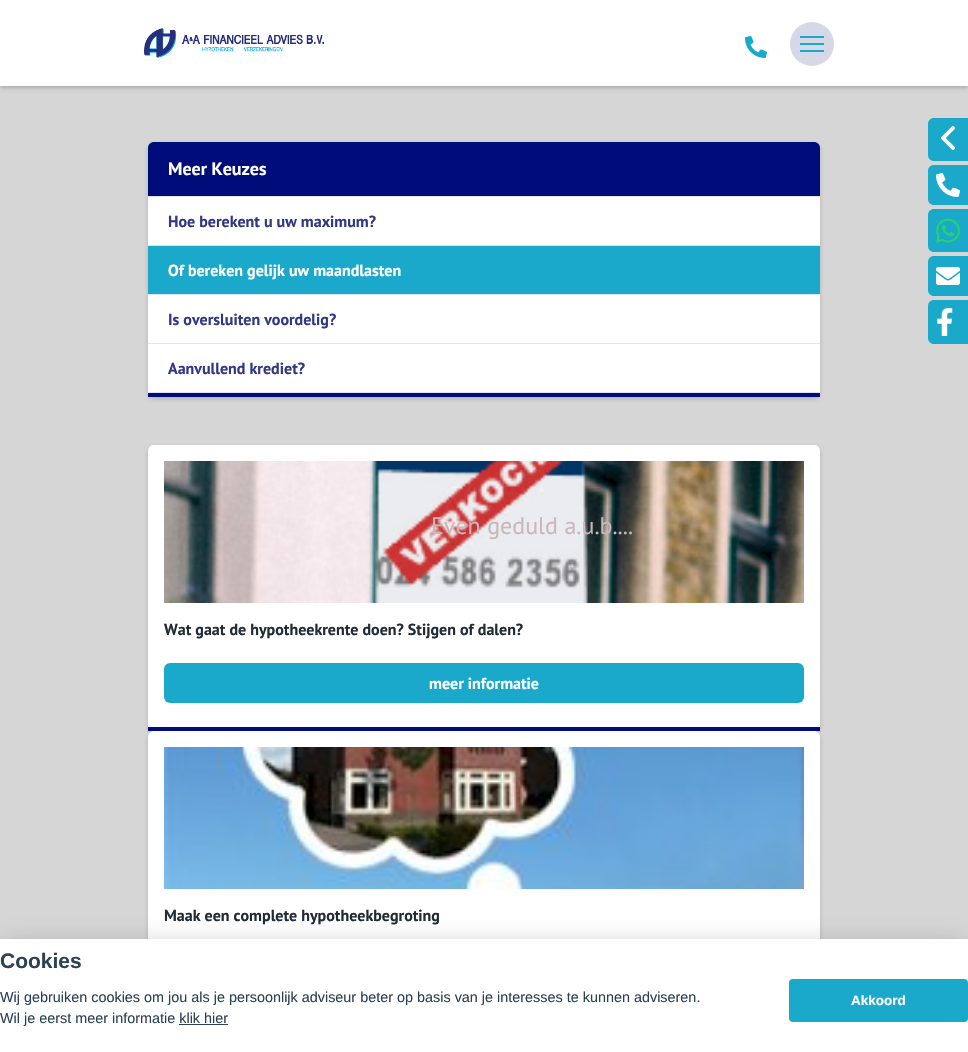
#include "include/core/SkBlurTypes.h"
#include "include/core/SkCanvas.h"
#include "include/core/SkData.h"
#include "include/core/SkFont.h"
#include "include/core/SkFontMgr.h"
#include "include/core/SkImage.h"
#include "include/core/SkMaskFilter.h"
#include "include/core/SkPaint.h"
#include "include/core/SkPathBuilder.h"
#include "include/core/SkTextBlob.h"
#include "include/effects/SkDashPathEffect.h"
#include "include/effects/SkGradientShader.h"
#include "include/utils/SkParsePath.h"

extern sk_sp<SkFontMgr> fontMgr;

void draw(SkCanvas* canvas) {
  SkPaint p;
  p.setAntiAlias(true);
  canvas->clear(SkColorSetRGB(214, 214, 214));
  p.setColor(SkColorSetARGB(51, 0, 0, 0));
  p.setMaskFilter(SkMaskFilter::MakeBlur(kNormal_SkBlurStyle, 2));
  canvas->drawRect(SkRect::MakeLTRB(0, 2, 968, 88), p);
  p.setMaskFilter(nullptr);
  p.setColor(SK_ColorWHITE);
  canvas->drawRect(SkRect::MakeLTRB(0, 0, 968, 86), p);
  canvas->drawImageRect(SkImages::DeferredFromEncodedData(SkData::MakeFromFileName("images/1.png")), SkRect::MakeLTRB(144, 28, 324, 58), SkSamplingOptions());
  canvas->drawImageRect(SkImages::DeferredFromEncodedData(SkData::MakeFromFileName("images/2.png")), SkRect::MakeLTRB(745, 36, 767, 58), SkSamplingOptions());
  p.setColor(SkColorSetRGB(214, 216, 231));
  canvas->drawCircle(812, 44, 22, p);
  p.setColor(SkColorSetRGB(27, 169, 203));
  canvas->drawRect(SkRect::MakeLTRB(800, 36, 824, 38), p);
  canvas->drawRect(SkRect::MakeLTRB(800, 43, 824, 45), p);
  canvas->drawRect(SkRect::MakeLTRB(800, 50, 824, 52), p);
  p.setColor(SkColorSetARGB(43, 0, 0, 0));
  p.setMaskFilter(SkMaskFilter::MakeBlur(kNormal_SkBlurStyle, 2));
  canvas->drawRoundRect(SkRect::MakeLTRB(148, 144, 820, 399), 6, 6, p);
  p.setMaskFilter(nullptr);
  p.setColor(SK_ColorWHITE);
  canvas->drawPath(SkPathBuilder().moveTo(154, 142).lineTo(814, 142).cubicTo(817.5f, 142, 820, 144.5f, 820, 148).lineTo(820, 397).lineTo(148, 397).lineTo(148, 148).cubicTo(148, 144.5f, 150.5f, 142, 154, 142).close().detach(), p);
  p.setColor(SkColorSetRGB(0, 12, 122));
  canvas->drawRect(SkRect::MakeLTRB(148, 393, 820, 397), p);
  canvas->drawPath(SkPathBuilder().moveTo(154, 142).lineTo(814, 142).cubicTo(817.5f, 142, 820, 144.5f, 820, 148).lineTo(820, 196).lineTo(148, 196).lineTo(148, 148).cubicTo(148, 144.5f, 150.5f, 142, 154, 142).close().detach(), p);
  p.setColor(SkColorSetRGB(226, 228, 237));
  canvas->drawRect(SkRect::MakeLTRB(148, 196, 820, 197), p);
  p.setColor(SkColorSetRGB(27, 169, 203));
  canvas->drawRect(SkRect::MakeLTRB(148, 246, 820, 294), p);
  p.setColor(SkColorSetRGB(226, 228, 237));
  canvas->drawRect(SkRect::MakeLTRB(148, 245, 820, 246), p);
  canvas->drawRect(SkRect::MakeLTRB(148, 294, 820, 295), p);
  canvas->drawRect(SkRect::MakeLTRB(148, 343, 820, 344), p);
  canvas->drawRect(SkRect::MakeLTRB(148, 392, 820, 393), p);
  p.setColor(SkColorSetARGB(43, 0, 0, 0));
  p.setMaskFilter(SkMaskFilter::MakeBlur(kNormal_SkBlurStyle, 2));
  canvas->drawRoundRect(SkRect::MakeLTRB(148, 447, 820, 733), 6, 6, p);
  p.setMaskFilter(nullptr);
  p.setColor(SK_ColorWHITE);
  canvas->drawPath(SkPathBuilder().moveTo(154, 445).lineTo(814, 445).cubicTo(817.5f, 445, 820, 447.5f, 820, 451).lineTo(820, 731).lineTo(148, 731).lineTo(148, 451).cubicTo(148, 447.5f, 150.5f, 445, 154, 445).close().detach(), p);
  p.setColor(SkColorSetRGB(0, 12, 122));
  canvas->drawRect(SkRect::MakeLTRB(148, 727, 820, 731), p);
  canvas->drawImageRect(SkImages::DeferredFromEncodedData(SkData::MakeFromFileName("images/3.png")), SkRect::MakeLTRB(164, 461, 804, 603), SkSamplingOptions());
  p.setColor(SkColorSetRGB(27, 169, 203));
  canvas->drawRoundRect(SkRect::MakeLTRB(164, 663, 804, 703), 6, 6, p);
  p.setColor(SkColorSetARGB(43, 0, 0, 0));
  p.setMaskFilter(SkMaskFilter::MakeBlur(kNormal_SkBlurStyle, 2));
  canvas->drawRoundRect(SkRect::MakeLTRB(148, 733, 820, 1019), 6, 6, p);
  p.setMaskFilter(nullptr);
  p.setColor(SK_ColorWHITE);
  canvas->drawPath(SkPathBuilder().moveTo(154, 731).lineTo(814, 731).cubicTo(817.5f, 731, 820, 733.5f, 820, 737).lineTo(820, 1017).lineTo(148, 1017).lineTo(148, 737).cubicTo(148, 733.5f, 150.5f, 731, 154, 731).close().detach(), p);
  canvas->drawImageRect(SkImages::DeferredFromEncodedData(SkData::MakeFromFileName("images/4.png")), SkRect::MakeLTRB(164, 747, 804, 889), SkSamplingOptions());
  p.setColor(SkColorSetRGB(27, 169, 203));
  canvas->drawPath(SkPathBuilder().moveTo(934, 118).lineTo(968, 118).lineTo(968, 161).lineTo(934, 161).cubicTo(930.5f, 161, 928, 158.5f, 928, 155).lineTo(928, 124).cubicTo(928, 120.5f, 930.5f, 118, 934, 118).close().detach(), p);
  canvas->drawImageRect(SkImages::DeferredFromEncodedData(SkData::MakeFromFileName("images/5.png")), SkRect::MakeLTRB(941, 126, 955, 150), SkSamplingOptions());
  canvas->drawPath(SkPathBuilder().moveTo(934, 165).lineTo(968, 165).lineTo(968, 205).lineTo(934, 205).cubicTo(930.5f, 205, 928, 202.5f, 928, 199).lineTo(928, 171).cubicTo(928, 167.5f, 930.5f, 165, 934, 165).close().detach(), p);
  canvas->drawImageRect(SkImages::DeferredFromEncodedData(SkData::MakeFromFileName("images/6.png")), SkRect::MakeLTRB(936, 173, 960, 197), SkSamplingOptions());
  canvas->drawPath(SkPathBuilder().moveTo(934, 209).lineTo(968, 209).lineTo(968, 252).lineTo(934, 252).cubicTo(930.5f, 252, 928, 249.5f, 928, 246).lineTo(928, 215).cubicTo(928, 211.5f, 930.5f, 209, 934, 209).close().detach(), p);
  canvas->drawImageRect(SkImages::DeferredFromEncodedData(SkData::MakeFromFileName("images/7.png")), SkRect::MakeLTRB(936, 218, 960, 243), SkSamplingOptions());
  canvas->drawPath(SkPathBuilder().moveTo(934, 256).lineTo(968, 256).lineTo(968, 296).lineTo(934, 296).cubicTo(930.5f, 296, 928, 293.5f, 928, 290).lineTo(928, 262).cubicTo(928, 258.5f, 930.5f, 256, 934, 256).close().detach(), p);
  canvas->drawImageRect(SkImages::DeferredFromEncodedData(SkData::MakeFromFileName("images/8.png")), SkRect::MakeLTRB(936, 267, 960, 285), SkSamplingOptions());
  canvas->drawPath(SkPathBuilder().moveTo(934, 300).lineTo(968, 300).lineTo(968, 344).lineTo(934, 344).cubicTo(930.5f, 344, 928, 341.5f, 928, 338).lineTo(928, 306).cubicTo(928, 302.5f, 930.5f, 300, 934, 300).close().detach(), p);
  canvas->drawImageRect(SkImages::DeferredFromEncodedData(SkData::MakeFromFileName("images/9.png")), SkRect::MakeLTRB(937, 308, 953, 336), SkSamplingOptions());
  p.setColor(SkColorSetARGB(71, 2, 2, 3));
  p.setMaskFilter(SkMaskFilter::MakeBlur(kNormal_SkBlurStyle, 15));
  canvas->drawRect(SkRect::MakeLTRB(0, 949, 968, 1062), p);
  p.setMaskFilter(nullptr);
  p.setColor(SK_ColorWHITE);
  canvas->drawRect(SkRect::MakeLTRB(0, 939, 968, 1052), p);
  p.setColor(SkColorSetRGB(45, 65, 86));
  canvas->drawRect(SkRect::MakeLTRB(179, 1024, 228, 1025), p);
  p.setColor(SkColorSetRGB(27, 169, 203));
  canvas->drawRoundRect(SkRect::MakeLTRB(789, 979, 968, 1022), 4, 4, p);
  SkFont font1(fontMgr->matchFamilyStyle("PT Sans", SkFontStyle::Bold()), 18);
  font1.setSubpixel(true);
  p.setColor(SK_ColorWHITE);
  canvas->drawString("Meer Keuzes", 168, 175, font1, p);
  SkFont font2(fontMgr->matchFamilyStyle("PT Sans", SkFontStyle::Bold()), 16);
  font2.setSubpixel(true);
  p.setColor(SkColorSetRGB(48, 56, 133));
  canvas->drawString("Hoe berekent u uw maximum?", 168, 227, font2, p);
  p.setColor(SK_ColorWHITE);
  canvas->drawString("Of bereken gelijk uw maandlasten", 168, 276, font2, p);
  p.setColor(SkColorSetRGB(48, 56, 133));
  canvas->drawString("Is oversluiten voordelig?", 168, 325, font2, p);
  canvas->drawString("Aanvullend krediet?", 168, 374, font2, p);
  p.setColor(SkColorSetRGB(33, 43, 54));
  canvas->drawString("Wat gaat de hypotheekrente doen? Stijgen of dalen?", 164, 635, font2, p);
  p.setColor(SK_ColorWHITE);
  canvas->drawString("meer informatie", 429, 689, font2, p);
  p.setColor(SkColorSetRGB(33, 43, 54));
  canvas->drawString("Maak een complete hypotheekbegroting", 164, 921, font2, p);
  SkFont font3(fontMgr->matchFamilyStyle("PT Sans", SkFontStyle::Normal()), 24);
  font3.setSubpixel(true);
  p.setColor(SkColorSetRGB(201, 183, 185));
  canvas->drawString("Even geduld a.u.b....", 431, 534, font3, p);
  SkFont font4(fontMgr->matchFamilyStyle("Liberation Sans", SkFontStyle::Bold()), 21);
  font4.setSubpixel(true);
  p.setColor(SkColorSetRGB(45, 65, 86));
  canvas->drawString("Cookies", 0, 968, font4, p);
  SkFont font5(fontMgr->matchFamilyStyle("Liberation Sans", SkFontStyle::Normal()), 14.4f);
  font5.setSubpixel(true);
  canvas->drawString("Wij gebruiken cookies om jou als je persoonlijk adviseur beter op basis van je interesses te kunnen adviseren.", 0, 1002, font5, p);
  canvas->drawString("Wil je eerst meer informatie klik hier", 0, 1023, font5, p);
  SkFont font6(fontMgr->matchFamilyStyle("Liberation Sans", SkFontStyle::Bold()), 13.5f);
  font6.setSubpixel(true);
  p.setColor(SK_ColorWHITE);
  canvas->drawString("Akkoord", 851, 1005, font6, p);
}
